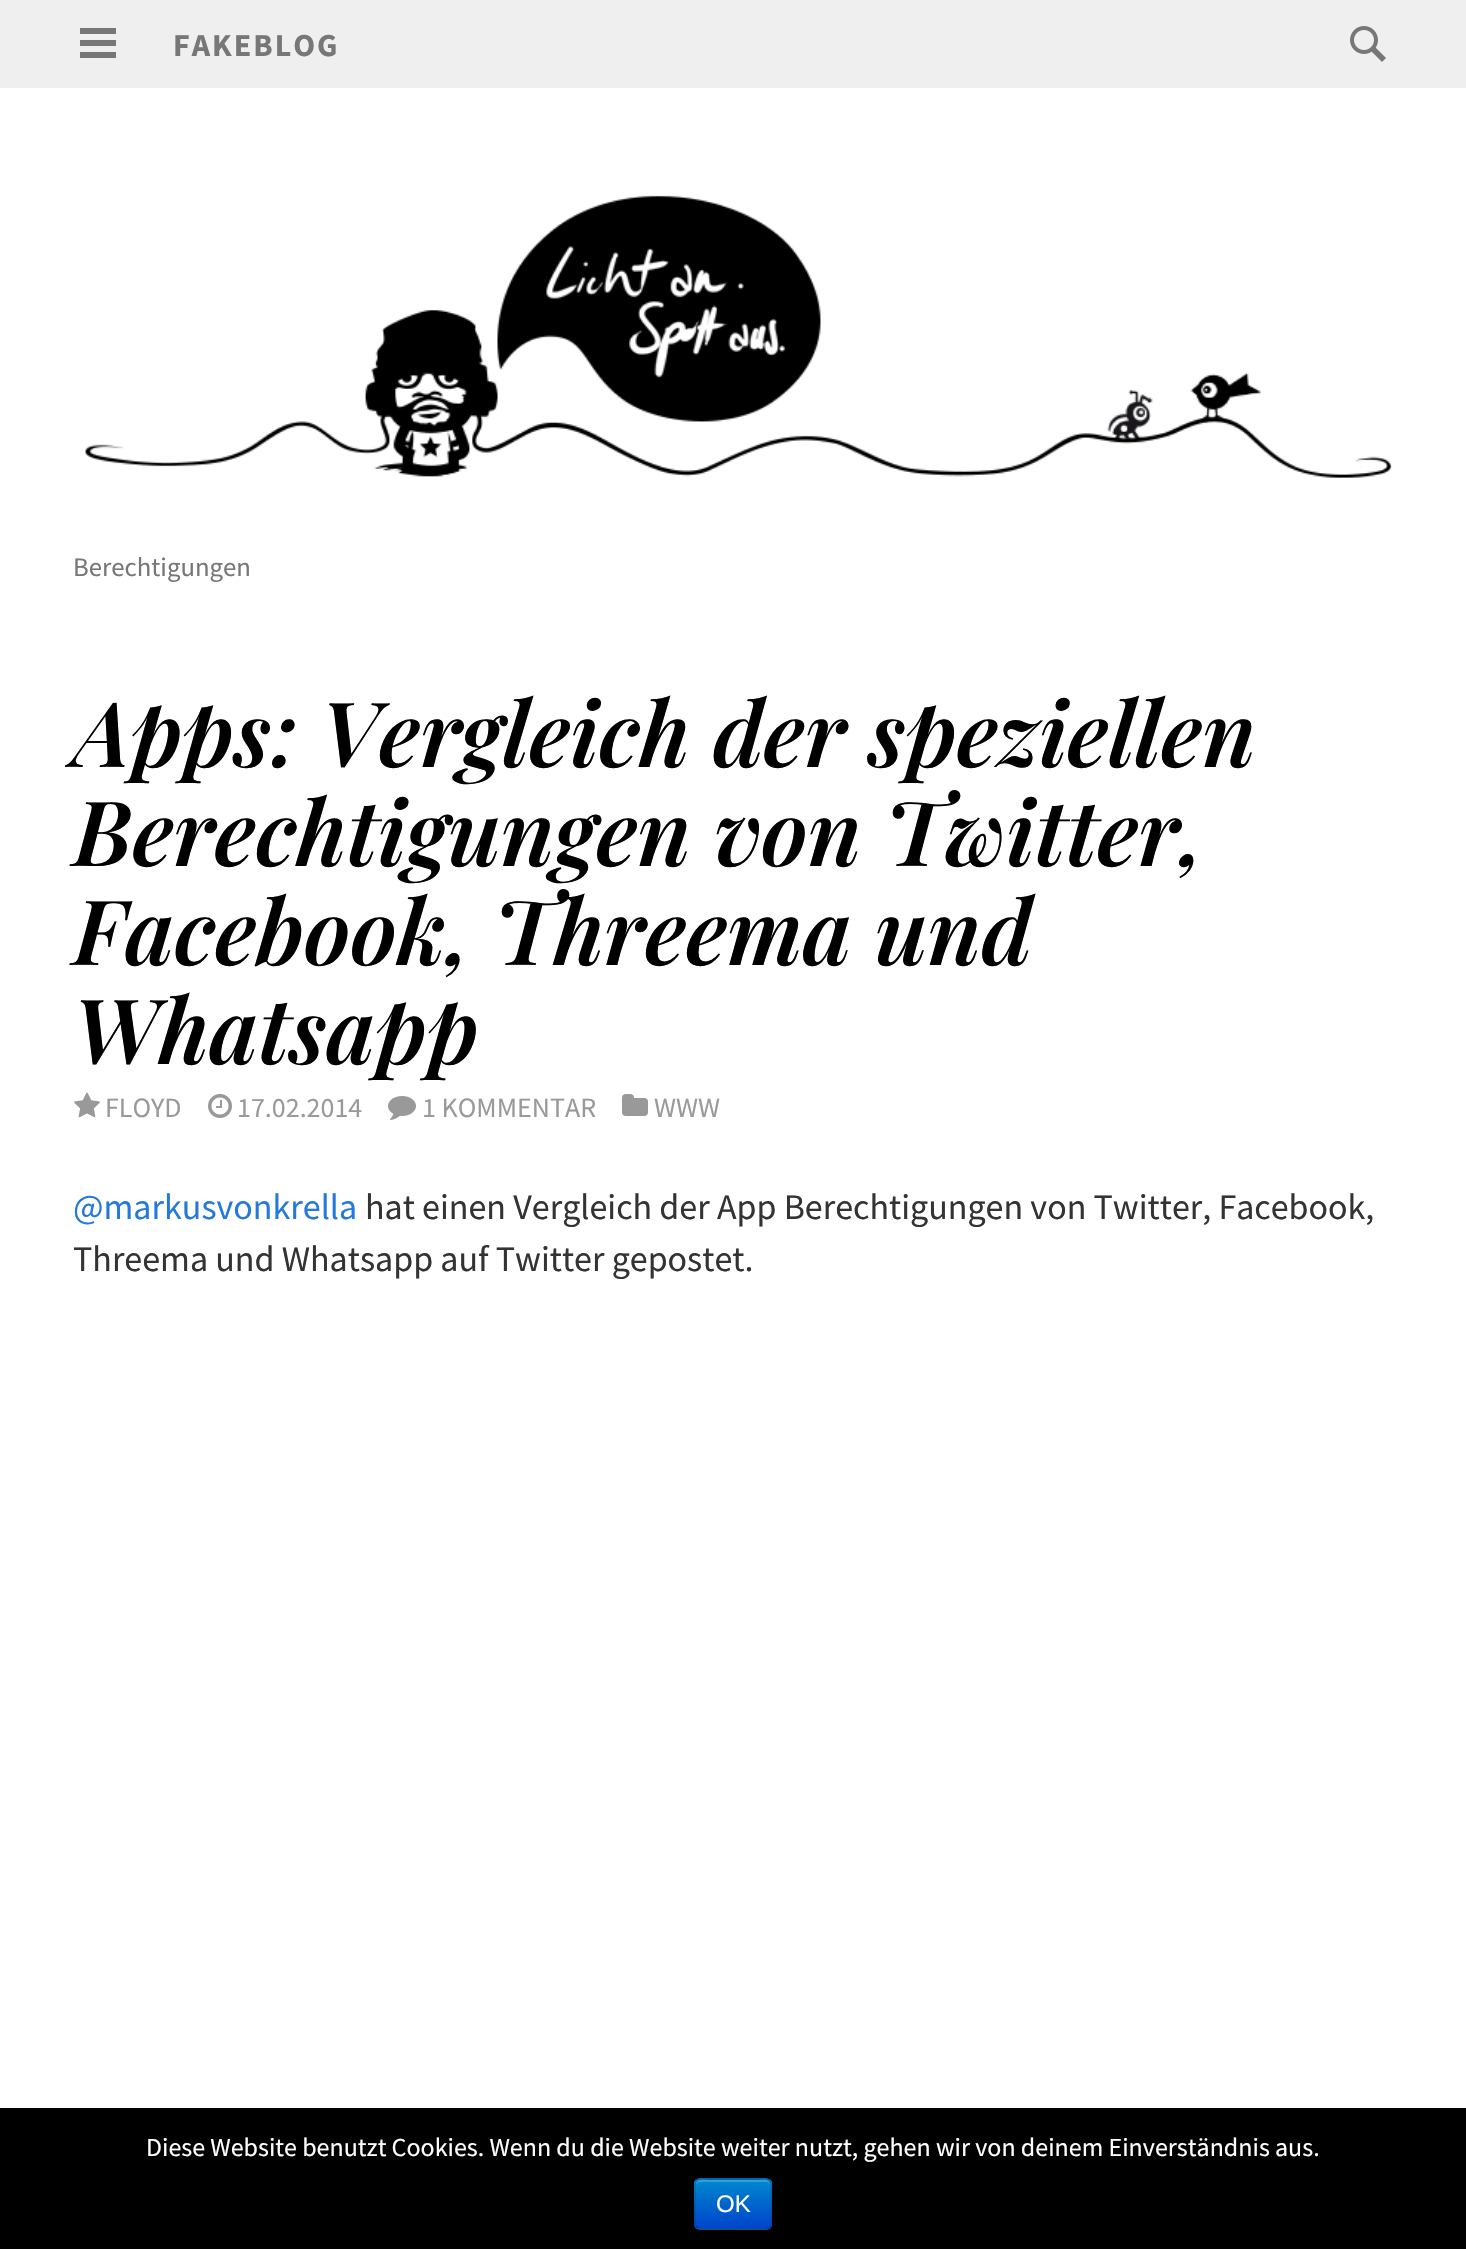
#include "include/core/SkBlurTypes.h"
#include "include/core/SkCanvas.h"
#include "include/core/SkData.h"
#include "include/core/SkFont.h"
#include "include/core/SkFontMgr.h"
#include "include/core/SkImage.h"
#include "include/core/SkMaskFilter.h"
#include "include/core/SkPaint.h"
#include "include/core/SkPathBuilder.h"
#include "include/core/SkTextBlob.h"
#include "include/effects/SkDashPathEffect.h"
#include "include/effects/SkGradientShader.h"
#include "include/utils/SkParsePath.h"

extern sk_sp<SkFontMgr> fontMgr;

void draw(SkCanvas* canvas) {
  SkPaint p;
  p.setAntiAlias(true);
  auto spacedText = [&](const char* s, float x, float y, const SkFont& font, const SkPaint& ink, float letter, float word) {
    std::vector<SkGlyphID> glyphs(font.countText(s, strlen(s), SkTextEncoding::kUTF8));
    std::vector<float> xs(glyphs.size());
    font.textToGlyphs(s, strlen(s), SkTextEncoding::kUTF8, glyphs);
    font.getXPos(glyphs, xs, x);
    float extra = 0;
    for (size_t i = 0; i < glyphs.size(); i++) {
      xs[i] += extra;
      extra += letter + word * (glyphs[i] == font.unicharToGlyph(' '));
    }
    canvas->drawTextBlob(SkTextBlob::MakeFromPosHGlyphs(glyphs, xs, y, font), 0, 0, ink);
  };
  canvas->clear(SK_ColorWHITE);
  p.setColor(SkColorSetRGB(239, 239, 239));
  canvas->drawRect(SkRect::MakeLTRB(0, 0, 1466, 88), p);
  p.setColor(SkColorSetRGB(119, 119, 119));
  canvas->drawRect(SkRect::MakeLTRB(80, 28, 116, 34), p);
  canvas->drawRect(SkRect::MakeLTRB(80, 40, 116, 46), p);
  canvas->drawRect(SkRect::MakeLTRB(80, 52, 116, 58), p);
  canvas->drawImageRect(SkImages::DeferredFromEncodedData(SkData::MakeFromFileName("images/1.png")), SkRect::MakeLTRB(1350, 26, 1386, 62), SkSamplingOptions());
  canvas->drawImageRect(SkImages::DeferredFromEncodedData(SkData::MakeFromFileName("images/2.png")), SkRect::MakeLTRB(85, 195, 1392, 478), SkSamplingOptions());
  canvas->drawImageRect(SkImages::DeferredFromEncodedData(SkData::MakeFromFileName("images/3.png")), SkRect::MakeLTRB(74, 1092, 100, 1118), SkSamplingOptions());
  canvas->drawImageRect(SkImages::DeferredFromEncodedData(SkData::MakeFromFileName("images/4.png")), SkRect::MakeLTRB(208, 1094, 232, 1118), SkSamplingOptions());
  canvas->drawImageRect(SkImages::DeferredFromEncodedData(SkData::MakeFromFileName("images/5.png")), SkRect::MakeLTRB(388, 1096, 416, 1120), SkSamplingOptions());
  canvas->drawImageRect(SkImages::DeferredFromEncodedData(SkData::MakeFromFileName("images/6.png")), SkRect::MakeLTRB(622, 1094, 648, 1116), SkSamplingOptions());
  p.setColor(SK_ColorBLACK);
  canvas->drawRect(SkRect::MakeLTRB(0, 2108, 1466, 2249), p);
  p.setColor(SkColorSetRGB(0, 109, 204));
  canvas->drawRoundRect(SkRect::MakeLTRB(694, 2178, 772, 2230), 6, 6, p);
  canvas->save();
  canvas->clipPath(SkPathBuilder().moveTo(700, 2178).lineTo(766, 2178).cubicTo(769.5f, 2178, 772, 2180.5f, 772, 2184).lineTo(772, 2224).cubicTo(772, 2227.5f, 769.5f, 2230, 766, 2230).lineTo(700, 2230).cubicTo(696.5f, 2230, 694, 2227.5f, 694, 2224).lineTo(694, 2184).cubicTo(694, 2180.5f, 696.5f, 2178, 700, 2178).close().detach(), true);
  {
    const SkColor colors[] = {SkColorSetRGB(0, 136, 204), SkColorSetRGB(0, 68, 204)};
    const float stops[] = {0, 1};
    const SkPoint ends[] = {{733, 2180}, {733, 2228}};
    p.setShader(SkGradientShader::MakeLinear(ends, colors, stops, 2, SkTileMode::kClamp));
    p.setAlpha(255);
  }
  canvas->drawRect(SkRect::MakeLTRB(694, 2180, 772, 2228), p);
  canvas->restore();
  p.setShader(nullptr);
  p.setColor(SkColorSetARGB(51, 255, 255, 255));
  canvas->drawPath(SkPathBuilder().moveTo(700, 2182).lineTo(766, 2182).cubicTo(768, 2182, 770, 2184, 770, 2186).cubicTo(770, 2177, 763, 2180, 755, 2180).lineTo(711, 2180).cubicTo(703, 2180, 696, 2177, 696, 2186).cubicTo(696, 2184, 698, 2182, 700, 2182).close().detach(), p);
  p.setStyle(SkPaint::kStroke_Style);
  p.setStrokeWidth(2);
  p.setColor(SkColorSetARGB(64, 0, 0, 0));
  canvas->drawPath(SkPathBuilder().moveTo(769.5f, 2227.5f).cubicTo(768.5f, 2228.5f, 767.5f, 2229, 766, 2229).lineTo(700, 2229).cubicTo(698.5f, 2229, 697.5f, 2228.5f, 696.5f, 2227.5f).detach(), p);
  p.setColor(SkColorSetARGB(26, 0, 0, 0));
  canvas->drawPath(SkPathBuilder().moveTo(696.5f, 2227.5f).cubicTo(695.5f, 2226.5f, 695, 2225.5f, 695, 2224).lineTo(695, 2184).cubicTo(695, 2182.5f, 695.5f, 2181.5f, 696.5f, 2180.5f).cubicTo(697.5f, 2179.5f, 698.5f, 2179, 700, 2179).lineTo(766, 2179).cubicTo(767.5f, 2179, 768.5f, 2179.5f, 769.5f, 2180.5f).cubicTo(770.5f, 2181.5f, 771, 2182.5f, 771, 2184).lineTo(771, 2224).cubicTo(771, 2225.5f, 770.5f, 2226.5f, 769.5f, 2227.5f).detach(), p);
  SkFont font1(fontMgr->matchFamilyStyle("Source Sans Pro", SkFontStyle::Bold()), 32);
  font1.setSubpixel(true);
  p.setStyle(SkPaint::kFill_Style);
  p.setColor(SkColorSetRGB(119, 119, 119));
  spacedText("FAKEBLOG", 173, 56, font1, p, 2, 0);
  SkFont font2(fontMgr->matchFamilyStyle("Source Sans Pro", SkFontStyle::Normal()), 26.75f);
  font2.setSubpixel(true);
  canvas->drawString("Berechtigungen", 73, 576, font2, p);
  SkFont font3(fontMgr->matchFamilyStyle("Playfair Display", SkFontStyle(600, SkFontStyle::kNormal_Width, SkFontStyle::kItalic_Slant)), 90);
  font3.setSubpixel(true);
  p.setColor(SK_ColorBLACK);
  canvas->drawString("Apps: Vergleich der speziellen", 73, 767, font3, p);
  canvas->drawString("Berechtigungen von Twitter,", 73, 866, font3, p);
  canvas->drawString("Facebook, Threema und", 73, 965, font3, p);
  canvas->drawString("Whatsapp", 73, 1064, font3, p);
  SkFont font4(fontMgr->matchFamilyStyle("Source Sans Pro", SkFontStyle::Normal()), 28);
  font4.setSubpixel(true);
  p.setColor(SkColorSetRGB(153, 153, 153));
  canvas->drawString("FLOYD", 105, 1117, font4, p);
  canvas->drawString("17.02.2014", 237, 1117, font4, p);
  canvas->drawString("1 KOMMENTAR", 422, 1117, font4, p);
  canvas->drawString("WWW", 654, 1117, font4, p);
  SkFont font5(fontMgr->matchFamilyStyle("Source Sans Pro", SkFontStyle::Normal()), 36);
  font5.setSubpixel(true);
  p.setColor(SkColorSetRGB(36, 121, 221));
  canvas->drawString("@markusvonkrella", 73, 1219, font5, p);
  p.setColor(SkColorSetRGB(51, 51, 51));
  canvas->drawString("hat einen Vergleich der App Berechtigungen von Twitter, Facebook,", 365, 1219, font5, p);
  canvas->drawString("Threema und Whatsapp auf Twitter gepostet.", 73, 1271, font5, p);
  SkFont font6(fontMgr->matchFamilyStyle("Source Sans Pro", SkFontStyle::Normal()), 26);
  font6.setSubpixel(true);
  p.setColor(SK_ColorWHITE);
  canvas->drawString("Diese Website benutzt Cookies. Wenn du die Website weiter nutzt, gehen wir von deinem Einverständnis aus.", 146, 2156, font6, p);
  SkFont font7(fontMgr->matchFamilyStyle("Liberation Sans", SkFontStyle::Normal()), 24);
  font7.setSubpixel(true);
  canvas->drawString("OK", 716, 2212, font7, p);
}
